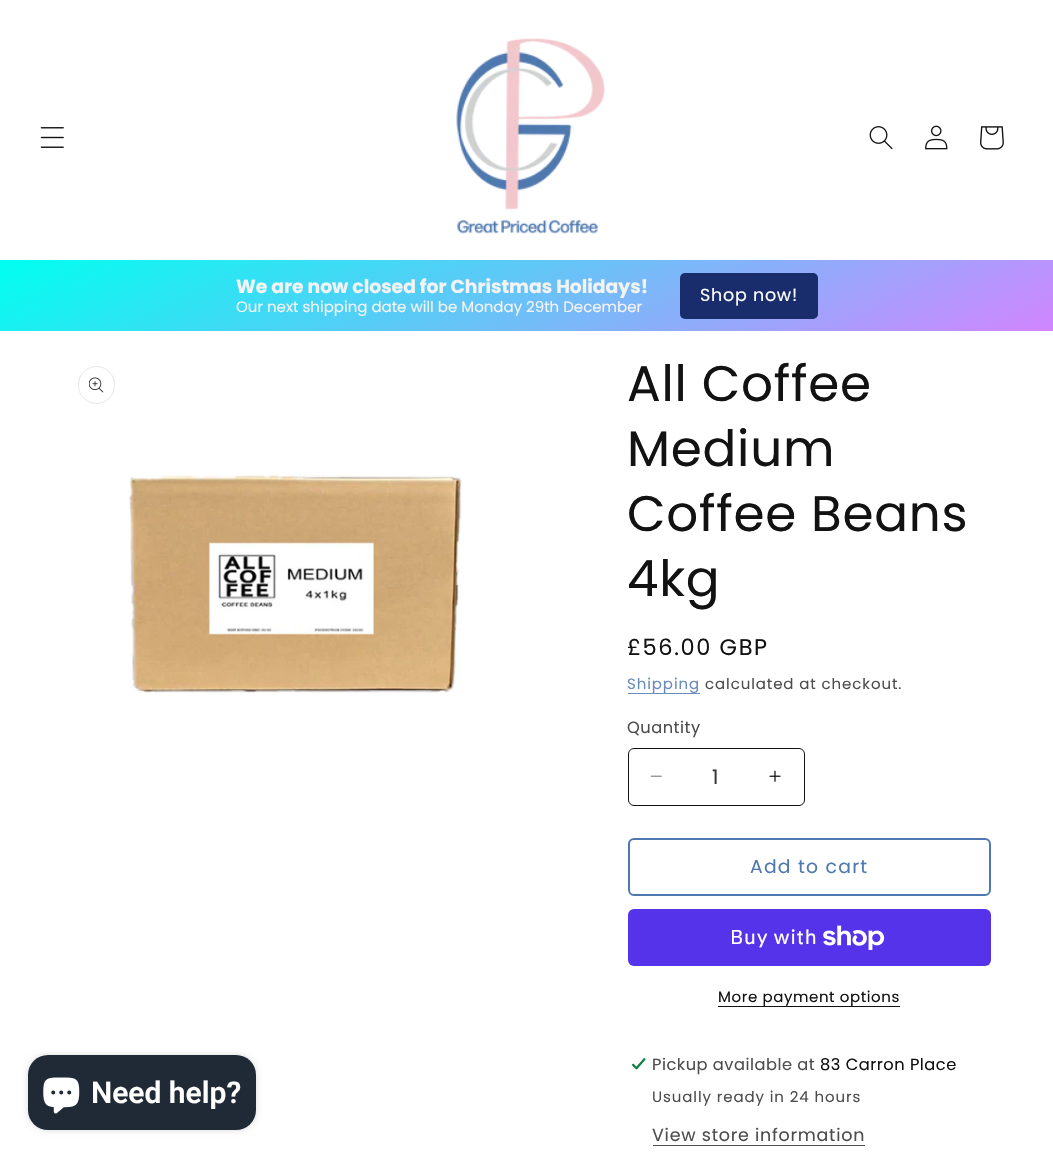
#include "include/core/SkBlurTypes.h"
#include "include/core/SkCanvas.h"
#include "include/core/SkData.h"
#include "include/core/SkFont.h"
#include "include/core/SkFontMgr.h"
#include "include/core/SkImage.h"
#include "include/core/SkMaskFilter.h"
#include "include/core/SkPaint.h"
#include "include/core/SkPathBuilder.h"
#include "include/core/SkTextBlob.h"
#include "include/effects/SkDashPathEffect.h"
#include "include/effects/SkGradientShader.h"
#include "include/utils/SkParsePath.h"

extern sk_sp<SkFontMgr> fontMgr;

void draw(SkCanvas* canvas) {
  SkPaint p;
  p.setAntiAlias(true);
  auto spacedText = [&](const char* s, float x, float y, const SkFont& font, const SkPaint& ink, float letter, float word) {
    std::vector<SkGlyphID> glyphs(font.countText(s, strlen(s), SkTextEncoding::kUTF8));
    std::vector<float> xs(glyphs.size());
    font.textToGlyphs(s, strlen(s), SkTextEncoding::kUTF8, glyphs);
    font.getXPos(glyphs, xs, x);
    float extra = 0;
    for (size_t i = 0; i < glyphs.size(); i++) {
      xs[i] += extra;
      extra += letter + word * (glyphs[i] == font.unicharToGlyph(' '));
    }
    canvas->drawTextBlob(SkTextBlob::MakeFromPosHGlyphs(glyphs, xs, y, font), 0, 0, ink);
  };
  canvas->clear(SK_ColorWHITE);
  canvas->drawImageRect(SkImages::DeferredFromEncodedData(SkData::MakeFromFileName("images/1.png")), SkRect::MakeLTRB(40, 127, 64, 148), SkSamplingOptions());
  canvas->drawImageRect(SkImages::DeferredFromEncodedData(SkData::MakeFromFileName("images/2.png")), SkRect::MakeLTRB(456, 38, 605, 234), SkSamplingOptions());
  canvas->drawImageRect(SkImages::DeferredFromEncodedData(SkData::MakeFromFileName("images/3.png")), SkRect::MakeLTRB(869, 126, 893, 150), SkSamplingOptions());
  canvas->drawImageRect(SkImages::DeferredFromEncodedData(SkData::MakeFromFileName("images/4.png")), SkRect::MakeLTRB(925, 125, 948, 150), SkSamplingOptions());
  canvas->drawImageRect(SkImages::DeferredFromEncodedData(SkData::MakeFromFileName("images/5.png")), SkRect::MakeLTRB(980, 126, 1004, 150), SkSamplingOptions());
  p.setColor(SkColorSetARGB(38, 0, 0, 0));
  p.setMaskFilter(SkMaskFilter::MakeBlur(kNormal_SkBlurStyle, 3));
  canvas->drawRoundRect(SkRect::MakeLTRB(28, 1055, 256, 1130), 20, 20, p);
  p.setMaskFilter(nullptr);
  p.setColor(SkColorSetRGB(32, 42, 54));
  canvas->drawRoundRect(SkRect::MakeLTRB(28, 1055, 256, 1130), 20, 20, p);
  canvas->drawImageRect(SkImages::DeferredFromEncodedData(SkData::MakeFromFileName("images/6.png")), SkRect::MakeLTRB(43, 1077, 80, 1114), SkSamplingOptions());
  {
    const SkColor colors[] = {SkColorSetRGB(0, 255, 240), SkColorSetRGB(210, 133, 255)};
    const float stops[] = {0, 1};
    const SkPoint ends[] = {{404, 54}, {650, 537}};
    p.setShader(SkGradientShader::MakeLinear(ends, colors, stops, 2, SkTileMode::kClamp));
    p.setAlpha(255);
  }
  canvas->drawRect(SkRect::MakeLTRB(0, 260, 1053, 331), p);
  p.setShader(nullptr);
  p.setColor(SkColorSetRGB(25, 44, 107));
  canvas->drawRoundRect(SkRect::MakeLTRB(680, 273, 818, 319), 5, 5, p);
  p.setStyle(SkPaint::kStroke_Style);
  p.setStrokeWidth(1);
  p.setColor(SkColorSetRGB(231, 231, 231));
  canvas->drawRoundRect(SkRect::MakeLTRB(78.5f, 366.5f, 114.5f, 403.5f), 18, 18, p);
  canvas->drawImageRect(SkImages::DeferredFromEncodedData(SkData::MakeFromFileName("images/7.png")), SkRect::MakeLTRB(89, 377, 104, 393), SkSamplingOptions());
  canvas->drawImageRect(SkImages::DeferredFromEncodedData(SkData::MakeFromFileName("images/8.png")), SkRect::MakeLTRB(129, 475, 462, 693), SkSamplingOptions());
  p.setStyle(SkPaint::kFill_Style);
  p.setColor(SkColorSetRGB(105, 140, 187));
  canvas->drawRect(SkRect::MakeLTRB(628, 693, 700, 694), p);
  canvas->drawImageRect(SkImages::DeferredFromEncodedData(SkData::MakeFromFileName("images/9.png")), SkRect::MakeLTRB(650, 775, 662, 777), SkSamplingOptions());
  canvas->drawImageRect(SkImages::DeferredFromEncodedData(SkData::MakeFromFileName("images/10.png")), SkRect::MakeLTRB(769, 770, 781, 782), SkSamplingOptions());
  p.setStyle(SkPaint::kStroke_Style);
  p.setColor(SkColorSetRGB(18, 18, 18));
  canvas->drawRoundRect(SkRect::MakeLTRB(628.5f, 748.5f, 804.5f, 805.5f), 5.5f, 5.5f, p);
  p.setStrokeWidth(2);
  p.setColor(SkColorSetRGB(78, 120, 175));
  canvas->drawRoundRect(SkRect::MakeLTRB(629, 839, 990, 895), 5, 5, p);
  p.setStyle(SkPaint::kFill_Style);
  p.setColor(SkColorSetRGB(84, 51, 235));
  canvas->drawRoundRect(SkRect::MakeLTRB(628, 909, 991, 966), 6, 6, p);
  canvas->drawImageRect(SkImages::DeferredFromEncodedData(SkData::MakeFromFileName("images/11.png")), SkRect::MakeLTRB(823, 925, 885, 950), SkSamplingOptions());
  p.setColor(SkColorSetRGB(18, 18, 18));
  canvas->drawRect(SkRect::MakeLTRB(718, 1006, 900, 1007), p);
  canvas->drawImageRect(SkImages::DeferredFromEncodedData(SkData::MakeFromFileName("images/12.png")), SkRect::MakeLTRB(631, 1057, 646, 1070), SkSamplingOptions());
  p.setColor(SkColorSetRGB(77, 77, 77));
  canvas->drawRect(SkRect::MakeLTRB(653, 1145, 865, 1146), p);
  SkFont font1(fontMgr->matchFamilyStyle("Roboto", SkFontStyle(600, SkFontStyle::kNormal_Width, SkFontStyle::kUpright_Slant)), 30);
  font1.setSubpixel(true);
  p.setColor(SK_ColorWHITE);
  canvas->drawString("Need help?", 91, 1103, font1, p);
  SkFont font2(fontMgr->matchFamilyStyle("Poppins", SkFontStyle::Bold()), 18.75f);
  font2.setSubpixel(true);
  p.setColor(SkColorSetRGB(243, 243, 243));
  canvas->drawString("We are now closed for Christmas Holidays!", 236, 293, font2, p);
  SkFont font3(fontMgr->matchFamilyStyle("Poppins", SkFontStyle::Normal()), 15);
  font3.setSubpixel(true);
  canvas->drawString("Our next shipping date will be Monday 29th December", 236, 312, font3, p);
  SkFont font4(fontMgr->matchFamilyStyle("Poppins", SkFontStyle::Normal()), 17.5f);
  font4.setSubpixel(true);
  p.setColor(SK_ColorWHITE);
  spacedText("Shop now!", 700, 301, font4, p, 0.75f, 0);
  SkFont font5(fontMgr->matchFamilyStyle("Poppins", SkFontStyle::Normal()), 50);
  font5.setSubpixel(true);
  p.setColor(SkColorSetRGB(18, 18, 18));
  spacedText("All Coffee", 627, 401, font5, p, 0.75f, 0);
  spacedText("Medium", 627, 466, font5, p, 0.75f, 0);
  spacedText("Coffee Beans", 627, 531, font5, p, 0.75f, 0);
  spacedText("4kg", 627, 596, font5, p, 0.75f, 0);
  SkFont font6(fontMgr->matchFamilyStyle("Poppins", SkFontStyle::Normal()), 22.5f);
  font6.setSubpixel(true);
  spacedText("£56.00 GBP", 627, 655, font6, p, 1.6f, 0);
  p.setColor(SkColorSetRGB(105, 140, 187));
  spacedText("Shipping", 627, 689, font3, p, 0.9f, 0);
  p.setColor(SkColorSetRGB(77, 77, 77));
  spacedText("calculated at checkout.", 705, 689, font3, p, 0.9f, 0);
  SkFont font7(fontMgr->matchFamilyStyle("Poppins", SkFontStyle::Normal()), 16.25f);
  font7.setSubpixel(true);
  spacedText("Quantity", 627, 733, font7, p, 0.5f, 0);
  SkFont font8(fontMgr->matchFamilyStyle("Poppins", SkFontStyle::Normal()), 20);
  font8.setSubpixel(true);
  p.setColor(SkColorSetRGB(54, 54, 54));
  canvas->drawString("1", 712, 784, font8, p);
  SkFont font9(fontMgr->matchFamilyStyle("Poppins", SkFontStyle::Normal()), 18.75f);
  font9.setSubpixel(true);
  p.setColor(SkColorSetRGB(78, 120, 175));
  spacedText("Add to cart", 750, 873, font9, p, 1.25f, 0);
  SkFont font10(fontMgr->matchFamilyStyle("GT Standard", SkFontStyle::Normal()), 20);
  font10.setSubpixel(true);
  p.setColor(SK_ColorWHITE);
  spacedText("Buy with", 730, 944, font10, p, 0.75f, 0);
  p.setColor(SkColorSetRGB(18, 18, 18));
  spacedText("More payment options", 718, 1002, font3, p, 0.6f, 0);
  p.setColor(SkColorSetRGB(77, 77, 77));
  spacedText("Pickup available at", 652, 1070, font7, p, 0.5f, 0);
  p.setColor(SkColorSetRGB(18, 18, 18));
  spacedText("83 Carron Place", 820, 1070, font7, p, 0.5f, 0);
  p.setColor(SkColorSetRGB(77, 77, 77));
  spacedText("Usually ready in 24 hours", 652, 1102, font3, p, 0.9f, 0);
  spacedText("View store information", 652, 1141, font4, p, 0.75f, 0);
}
